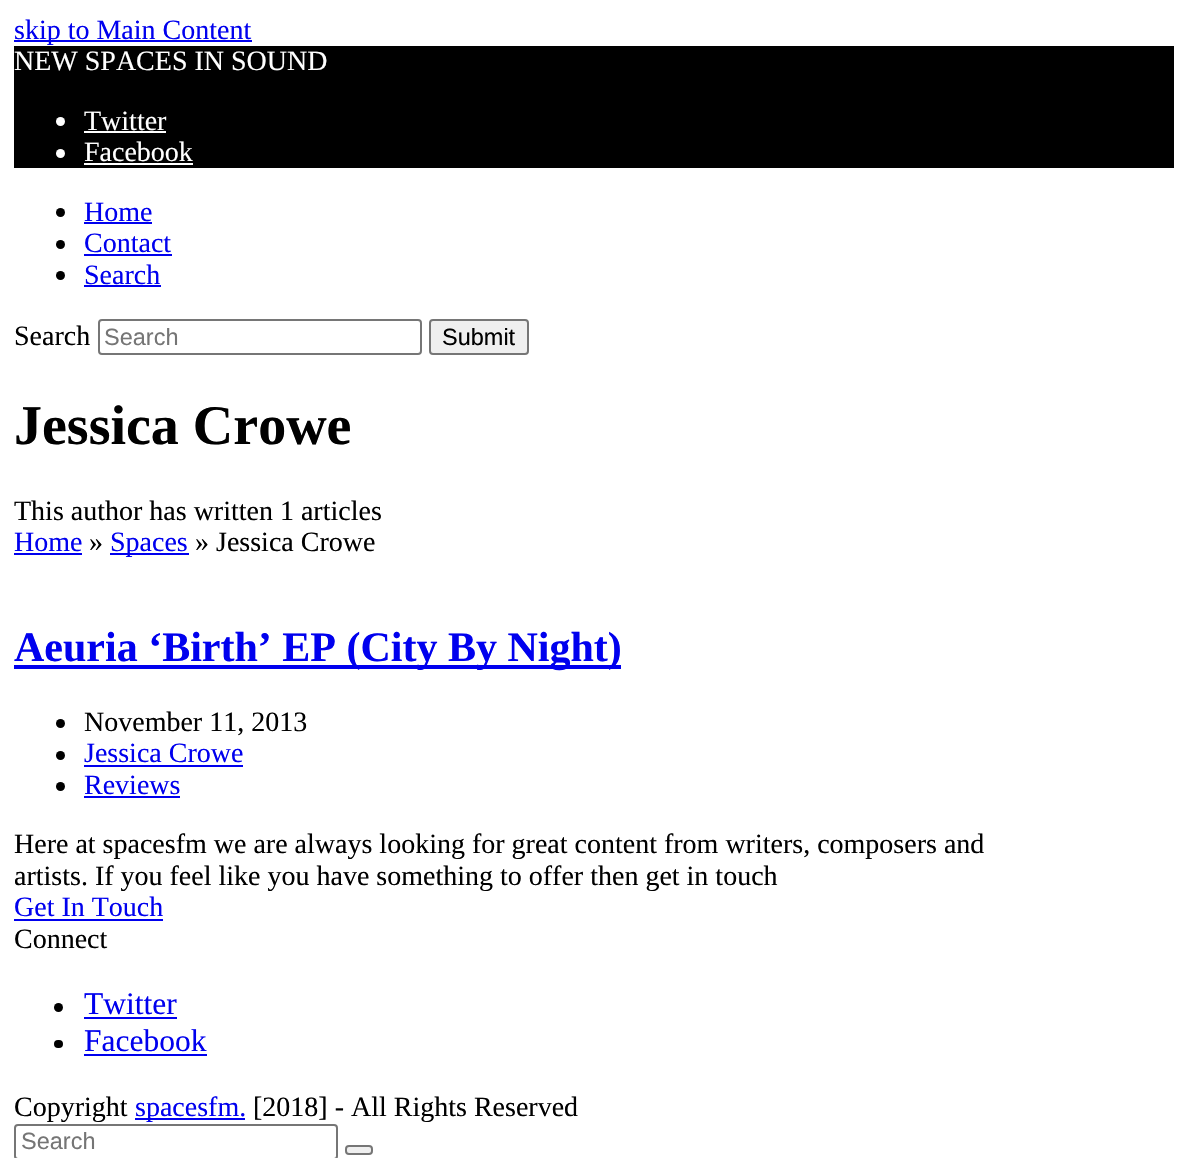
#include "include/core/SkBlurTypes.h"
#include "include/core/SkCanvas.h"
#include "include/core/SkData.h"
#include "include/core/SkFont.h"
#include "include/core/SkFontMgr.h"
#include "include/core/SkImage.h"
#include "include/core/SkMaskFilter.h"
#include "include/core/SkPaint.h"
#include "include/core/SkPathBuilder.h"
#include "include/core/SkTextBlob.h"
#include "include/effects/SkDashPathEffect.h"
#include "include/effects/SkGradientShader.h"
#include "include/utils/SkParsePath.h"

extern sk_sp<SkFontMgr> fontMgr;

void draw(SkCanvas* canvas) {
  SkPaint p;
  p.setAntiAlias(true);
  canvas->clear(SK_ColorWHITE);
  p.setColor(SkColorSetRGB(0, 0, 238));
  canvas->drawRect(SkRect::MakeLTRB(14, 40, 252, 42), p);
  p.setColor(SK_ColorBLACK);
  canvas->drawRect(SkRect::MakeLTRB(14, 46, 1174, 168), p);
  p.setColor(SK_ColorWHITE);
  canvas->drawCircle(60.5f, 121.5f, 4.5f, p);
  canvas->drawRect(SkRect::MakeLTRB(84, 131, 166, 133), p);
  canvas->drawCircle(60.5f, 153.5f, 4.5f, p);
  canvas->drawRect(SkRect::MakeLTRB(84, 163, 193, 165), p);
  p.setColor(SK_ColorBLACK);
  canvas->drawCircle(60.5f, 212.5f, 4.5f, p);
  p.setColor(SkColorSetRGB(0, 0, 238));
  canvas->drawRect(SkRect::MakeLTRB(84, 222, 152, 224), p);
  p.setColor(SK_ColorBLACK);
  canvas->drawCircle(60.5f, 244.5f, 4.5f, p);
  p.setColor(SkColorSetRGB(0, 0, 238));
  canvas->drawRect(SkRect::MakeLTRB(84, 254, 172, 256), p);
  p.setColor(SK_ColorBLACK);
  canvas->drawCircle(60.5f, 275.5f, 4.5f, p);
  p.setColor(SkColorSetRGB(0, 0, 238));
  canvas->drawRect(SkRect::MakeLTRB(84, 285, 161, 287), p);
  p.setStyle(SkPaint::kStroke_Style);
  p.setStrokeWidth(2);
  p.setColor(SkColorSetRGB(118, 118, 118));
  canvas->drawRoundRect(SkRect::MakeLTRB(99, 320, 421, 354), 3, 3, p);
  p.setStyle(SkPaint::kFill_Style);
  p.setColor(SkColorSetRGB(239, 239, 239));
  canvas->drawRoundRect(SkRect::MakeLTRB(430, 320, 528, 354), 3, 3, p);
  p.setStyle(SkPaint::kStroke_Style);
  p.setColor(SkColorSetRGB(118, 118, 118));
  canvas->drawRoundRect(SkRect::MakeLTRB(430, 320, 528, 354), 3, 3, p);
  p.setStyle(SkPaint::kFill_Style);
  p.setColor(SkColorSetRGB(0, 0, 238));
  canvas->drawRect(SkRect::MakeLTRB(14, 553, 82, 555), p);
  canvas->drawRect(SkRect::MakeLTRB(110, 553, 189, 555), p);
  canvas->drawRect(SkRect::MakeLTRB(14, 665, 621, 669), p);
  p.setColor(SK_ColorBLACK);
  canvas->drawCircle(60.5f, 723.5f, 4.5f, p);
  canvas->drawCircle(60.5f, 755.5f, 4.5f, p);
  p.setColor(SkColorSetRGB(0, 0, 238));
  canvas->drawRect(SkRect::MakeLTRB(84, 765, 243, 767), p);
  p.setColor(SK_ColorBLACK);
  canvas->drawCircle(60.5f, 786.5f, 4.5f, p);
  p.setColor(SkColorSetRGB(0, 0, 238));
  canvas->drawRect(SkRect::MakeLTRB(84, 796, 180, 798), p);
  canvas->drawRect(SkRect::MakeLTRB(14, 919, 163, 921), p);
  p.setColor(SK_ColorBLACK);
  canvas->drawCircle(58.5f, 1007.5f, 4.5f, p);
  p.setColor(SkColorSetRGB(0, 0, 238));
  canvas->drawRect(SkRect::MakeLTRB(84, 1017, 177, 1019), p);
  p.setColor(SK_ColorBLACK);
  canvas->drawRoundRect(SkRect::MakeLTRB(54, 1040, 63, 1048), 4, 4, p);
  p.setColor(SkColorSetRGB(0, 0, 238));
  canvas->drawRect(SkRect::MakeLTRB(84, 1054, 207, 1056), p);
  canvas->drawRect(SkRect::MakeLTRB(135, 1118, 245, 1120), p);
  p.setStyle(SkPaint::kStroke_Style);
  p.setColor(SkColorSetRGB(118, 118, 118));
  canvas->drawRoundRect(SkRect::MakeLTRB(15, 1125, 337, 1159), 3, 3, p);
  p.setStyle(SkPaint::kFill_Style);
  p.setColor(SkColorSetRGB(239, 239, 239));
  canvas->drawRoundRect(SkRect::MakeLTRB(346, 1146, 372, 1154), 3, 3, p);
  p.setStyle(SkPaint::kStroke_Style);
  p.setColor(SkColorSetRGB(118, 118, 118));
  canvas->drawRoundRect(SkRect::MakeLTRB(346, 1146, 372, 1154), 3, 3, p);
  SkFont font1(fontMgr->matchFamilyStyle("Liberation Serif", SkFontStyle::Normal()), 28);
  font1.setSubpixel(true);
  p.setStyle(SkPaint::kFill_Style);
  p.setColor(SkColorSetRGB(0, 0, 238));
  canvas->drawString("skip to Main Content", 14, 39, font1, p);
  p.setColor(SK_ColorWHITE);
  canvas->drawString("NEW SPACES IN SOUND", 14, 70, font1, p);
  canvas->drawString("Twitter", 84, 130, font1, p);
  canvas->drawString("Facebook", 84, 161, font1, p);
  p.setColor(SkColorSetRGB(0, 0, 238));
  canvas->drawString("Home", 84, 221, font1, p);
  canvas->drawString("Contact", 84, 252, font1, p);
  canvas->drawString("Search", 84, 284, font1, p);
  p.setColor(SK_ColorBLACK);
  canvas->drawString("Search", 14, 345, font1, p);
  SkFont font2(fontMgr->matchFamilyStyle("Liberation Sans", SkFontStyle::Normal()), 23.5f);
  font2.setSubpixel(true);
  p.setColor(SkColorSetRGB(117, 117, 117));
  canvas->drawString("Search", 104, 345, font2, p);
  p.setColor(SK_ColorBLACK);
  canvas->drawString("Submit", 442, 345, font2, p);
  SkFont font3(fontMgr->matchFamilyStyle("Liberation Serif", SkFontStyle::Bold()), 56);
  font3.setSubpixel(true);
  canvas->drawString("Jessica Crowe", 14, 444, font3, p);
  canvas->drawString("This author has written 1 articles", 14, 520, font1, p);
  p.setColor(SkColorSetRGB(0, 0, 238));
  canvas->drawString("Home", 14, 551, font1, p);
  p.setColor(SK_ColorBLACK);
  canvas->drawString("»", 89, 551, font1, p);
  p.setColor(SkColorSetRGB(0, 0, 238));
  canvas->drawString("Spaces", 110, 551, font1, p);
  p.setColor(SK_ColorBLACK);
  canvas->drawString("» Jessica Crowe", 195, 551, font1, p);
  SkFont font4(fontMgr->matchFamilyStyle("Liberation Serif", SkFontStyle::Bold()), 42);
  font4.setSubpixel(true);
  p.setColor(SkColorSetRGB(0, 0, 238));
  canvas->drawString("Aeuria ‘Birth’ EP (City By Night)", 14, 661, font4, p);
  p.setColor(SK_ColorBLACK);
  canvas->drawString("November 11, 2013", 84, 731, font1, p);
  p.setColor(SkColorSetRGB(0, 0, 238));
  canvas->drawString("Jessica Crowe", 84, 762, font1, p);
  canvas->drawString("Reviews", 84, 794, font1, p);
  p.setColor(SK_ColorBLACK);
  canvas->drawString("Here at spacesfm we are always looking for great content from writers, composers and", 14, 853, font1, p);
  canvas->drawString("artists. If you feel like you have something to offer then get in touch", 14, 885, font1, p);
  p.setColor(SkColorSetRGB(0, 0, 238));
  canvas->drawString("Get In Touch", 14, 916, font1, p);
  p.setColor(SK_ColorBLACK);
  canvas->drawString("Connect", 14, 948, font1, p);
  SkFont font5(fontMgr->matchFamilyStyle("Liberation Serif", SkFontStyle::Normal()), 31.5f);
  font5.setSubpixel(true);
  p.setColor(SkColorSetRGB(0, 0, 238));
  canvas->drawString("Twitter", 84, 1014, font5, p);
  canvas->drawString("Facebook", 84, 1051, font5, p);
  p.setColor(SK_ColorBLACK);
  canvas->drawString("Copyright", 14, 1116, font1, p);
  p.setColor(SkColorSetRGB(0, 0, 238));
  canvas->drawString("spacesfm.", 135, 1116, font1, p);
  p.setColor(SK_ColorBLACK);
  canvas->drawString("[2018] - All Rights Reserved", 253, 1116, font1, p);
  p.setColor(SkColorSetRGB(117, 117, 117));
  canvas->drawString("Search", 21, 1149, font2, p);
}
